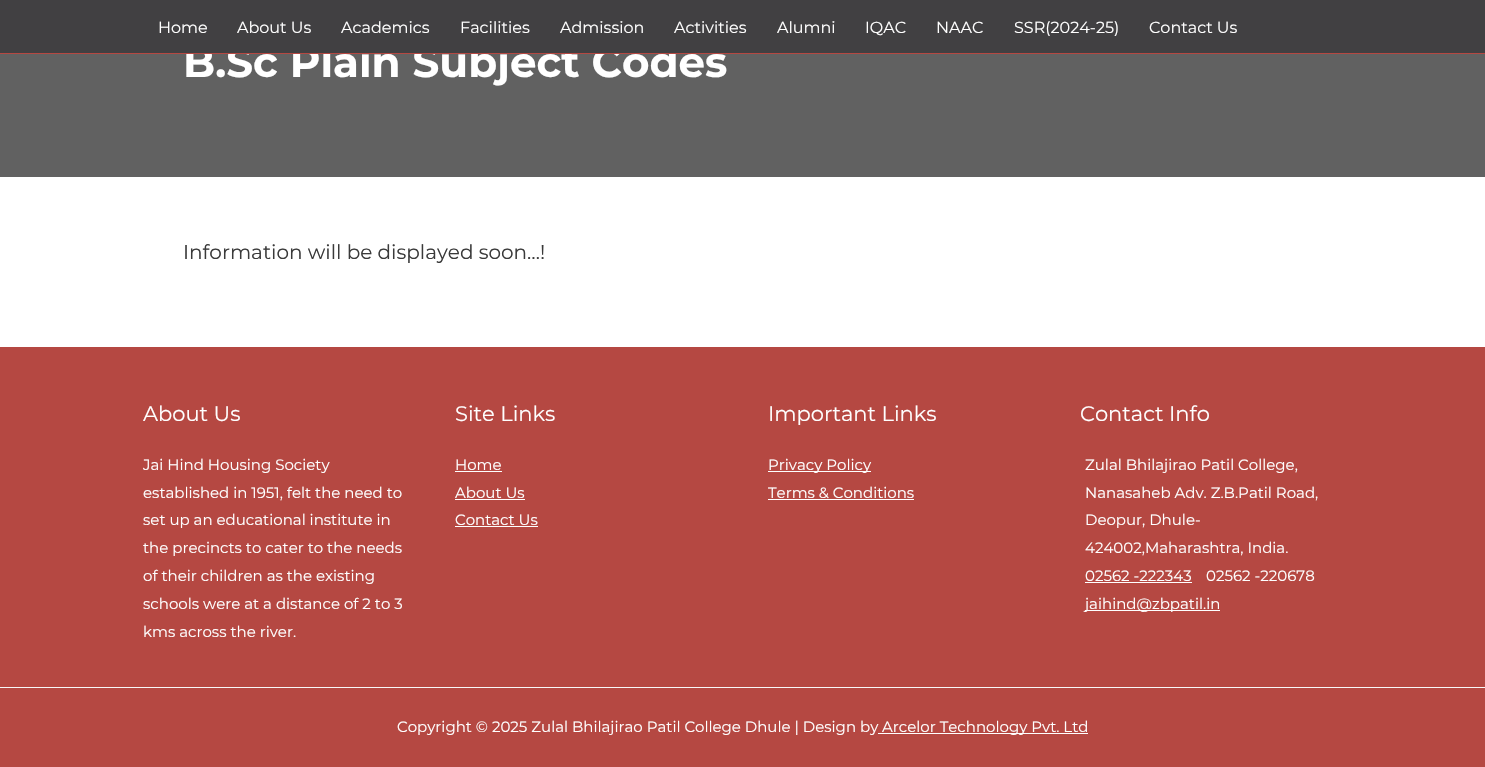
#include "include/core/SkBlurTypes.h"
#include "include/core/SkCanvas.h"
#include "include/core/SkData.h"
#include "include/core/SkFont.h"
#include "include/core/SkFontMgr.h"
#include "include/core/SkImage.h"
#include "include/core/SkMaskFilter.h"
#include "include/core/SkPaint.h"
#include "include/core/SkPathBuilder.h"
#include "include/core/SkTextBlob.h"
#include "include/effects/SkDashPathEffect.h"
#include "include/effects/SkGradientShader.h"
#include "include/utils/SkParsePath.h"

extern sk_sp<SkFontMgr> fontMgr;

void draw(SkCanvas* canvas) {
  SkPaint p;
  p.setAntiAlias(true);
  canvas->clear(SK_ColorWHITE);
  p.setColor(SkColorSetRGB(97, 97, 97));
  canvas->drawRect(SkRect::MakeLTRB(0, 54, 1485, 177), p);
  p.setColor(SkColorSetRGB(181, 72, 66));
  canvas->drawRect(SkRect::MakeLTRB(0, 347, 1485, 687), p);
  p.setColor(SK_ColorWHITE);
  canvas->drawRect(SkRect::MakeLTRB(455, 471, 502, 472), p);
  canvas->drawRect(SkRect::MakeLTRB(455, 499, 525, 500), p);
  canvas->drawRect(SkRect::MakeLTRB(455, 526, 538, 527), p);
  canvas->drawRect(SkRect::MakeLTRB(768, 471, 871, 472), p);
  canvas->drawRect(SkRect::MakeLTRB(768, 499, 914, 500), p);
  canvas->drawRect(SkRect::MakeLTRB(1085, 582, 1192, 583), p);
  canvas->drawRect(SkRect::MakeLTRB(1085, 610, 1220, 611), p);
  p.setColor(SkColorSetRGB(181, 72, 66));
  canvas->drawRect(SkRect::MakeLTRB(0, 688, 1485, 767), p);
  p.setColor(SkColorSetRGB(248, 248, 248));
  canvas->drawRect(SkRect::MakeLTRB(0, 687, 1485, 688), p);
  p.setColor(SK_ColorWHITE);
  canvas->drawRect(SkRect::MakeLTRB(878, 733, 1088, 734), p);
  SkFont font1(fontMgr->matchFamilyStyle("Montserrat", SkFontStyle::Bold()), 42);
  font1.setSubpixel(true);
  canvas->drawString("B.Sc Plain Subject Codes", 183, 77, font1, p);
  p.setColor(SkColorSetRGB(65, 64, 66));
  canvas->drawRect(SkRect::MakeLTRB(0, 0, 1485, 53), p);
  SkFont font2(fontMgr->matchFamilyStyle("Montserrat", SkFontStyle::Normal()), 16);
  font2.setSubpixel(true);
  p.setColor(SK_ColorWHITE);
  canvas->drawString("Contact Us", 1149, 33, font2, p);
  canvas->drawString("SSR(2024-25)", 1014, 33, font2, p);
  canvas->drawString("NAAC", 936, 33, font2, p);
  canvas->drawString("IQAC", 865, 33, font2, p);
  canvas->drawString("Alumni", 777, 33, font2, p);
  canvas->drawString("Activities", 674, 33, font2, p);
  canvas->drawString("Admission", 560, 33, font2, p);
  canvas->drawString("Facilities", 460, 33, font2, p);
  canvas->drawString("Academics", 341, 33, font2, p);
  canvas->drawString("About Us", 237, 33, font2, p);
  canvas->drawString("Home", 158, 33, font2, p);
  p.setColor(SkColorSetRGB(181, 72, 66));
  canvas->drawRect(SkRect::MakeLTRB(0, 53, 1485, 54), p);
  SkFont font3(fontMgr->matchFamilyStyle("Montserrat", SkFontStyle::Normal()), 20);
  font3.setSubpixel(true);
  p.setColor(SkColorSetRGB(58, 58, 58));
  canvas->drawString("Information will be displayed soon…!", 183, 259, font3, p);
  SkFont font4(fontMgr->matchFamilyStyle("Montserrat", SkFontStyle::Normal()), 21);
  font4.setSubpixel(true);
  p.setColor(SK_ColorWHITE);
  canvas->drawString("About Us", 143, 421, font4, p);
  SkFont font5(fontMgr->matchFamilyStyle("Montserrat", SkFontStyle::Normal()), 15);
  font5.setSubpixel(true);
  canvas->drawString("Jai Hind Housing Society", 143, 470, font5, p);
  canvas->drawString("established in 1951, felt the need to", 143, 498, font5, p);
  canvas->drawString("set up an educational institute in", 143, 525, font5, p);
  canvas->drawString("the precincts to cater to the needs", 143, 553, font5, p);
  canvas->drawString("of their children as the existing", 143, 581, font5, p);
  canvas->drawString("schools were at a distance of 2 to 3", 143, 609, font5, p);
  canvas->drawString("kms across the river.", 143, 637, font5, p);
  canvas->drawString("Site Links", 455, 421, font4, p);
  canvas->drawString("Home", 455, 470, font5, p);
  canvas->drawString("About Us", 455, 498, font5, p);
  canvas->drawString("Contact Us", 455, 525, font5, p);
  canvas->drawString("Important Links", 768, 421, font4, p);
  canvas->drawString("Privacy Policy", 768, 470, font5, p);
  canvas->drawString("Terms & Conditions", 768, 498, font5, p);
  canvas->drawString("Contact Info", 1080, 421, font4, p);
  canvas->drawString("Zulal Bhilajirao Patil College,", 1085, 470, font5, p);
  canvas->drawString("Nanasaheb Adv. Z.B.Patil Road,", 1085, 498, font5, p);
  canvas->drawString("Deopur, Dhule-", 1085, 525, font5, p);
  canvas->drawString("424002,Maharashtra, India.", 1085, 553, font5, p);
  canvas->drawString("02562 -222343", 1085, 581, font5, p);
  canvas->drawString("02562 -220678", 1206, 581, font5, p);
  canvas->drawString("jaihind@zbpatil.in", 1085, 609, font5, p);
  canvas->drawString("Copyright © 2025 Zulal Bhilajirao Patil College Dhule | Design by", 397, 732, font5, p);
  canvas->drawString("Arcelor Technology Pvt. Ltd", 882, 732, font5, p);
}
